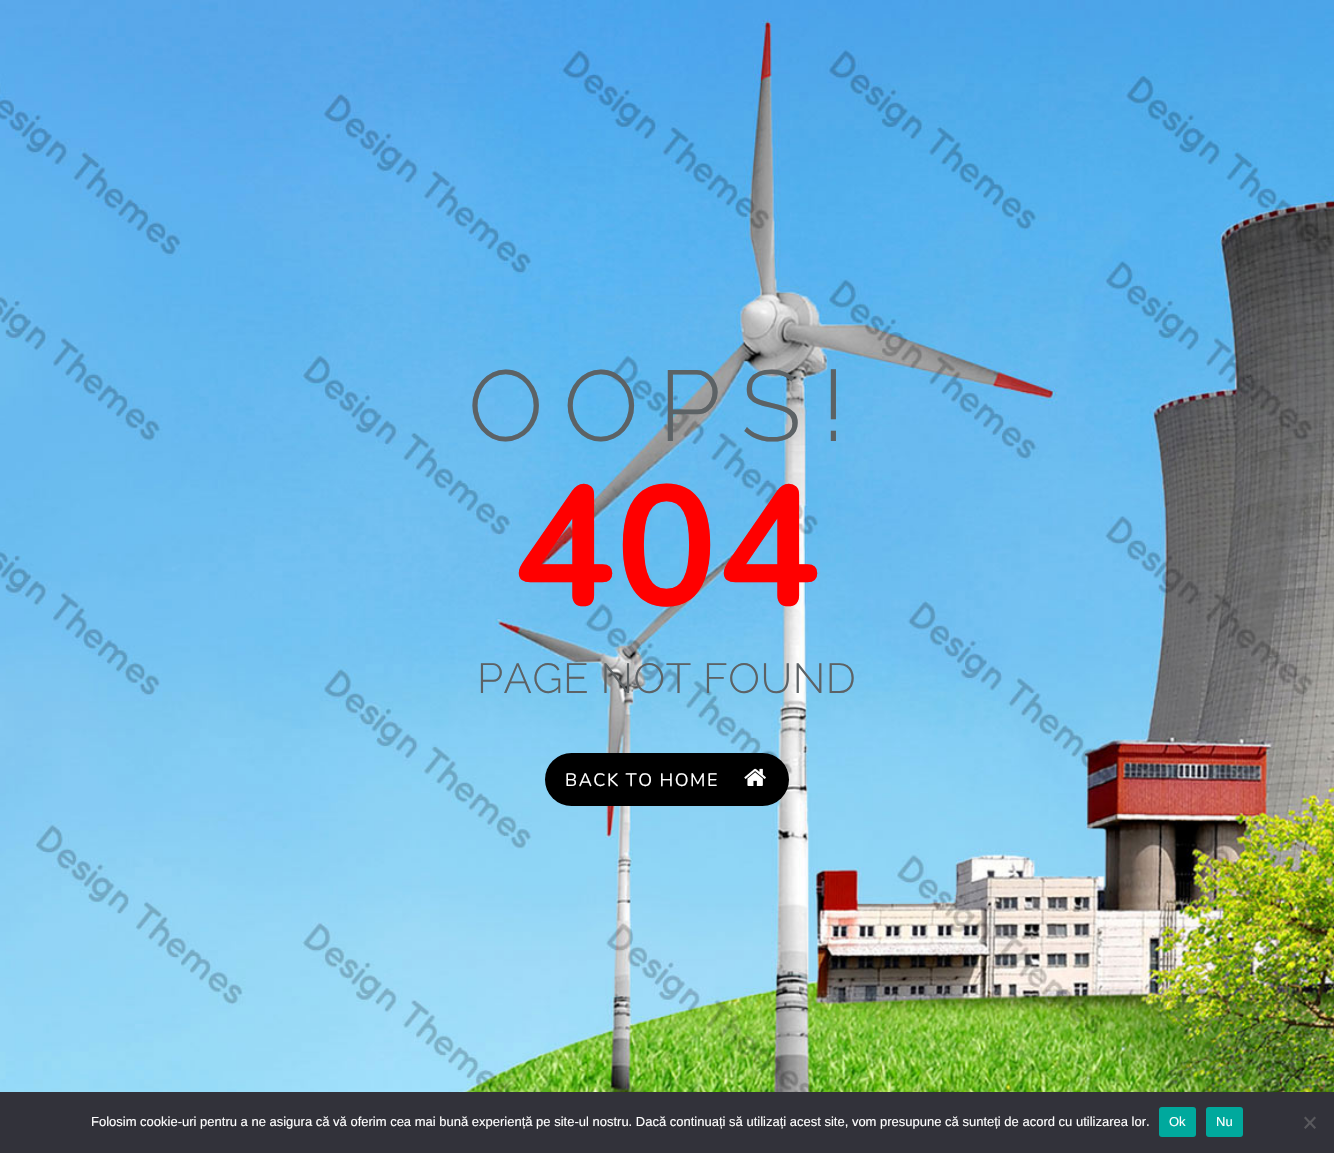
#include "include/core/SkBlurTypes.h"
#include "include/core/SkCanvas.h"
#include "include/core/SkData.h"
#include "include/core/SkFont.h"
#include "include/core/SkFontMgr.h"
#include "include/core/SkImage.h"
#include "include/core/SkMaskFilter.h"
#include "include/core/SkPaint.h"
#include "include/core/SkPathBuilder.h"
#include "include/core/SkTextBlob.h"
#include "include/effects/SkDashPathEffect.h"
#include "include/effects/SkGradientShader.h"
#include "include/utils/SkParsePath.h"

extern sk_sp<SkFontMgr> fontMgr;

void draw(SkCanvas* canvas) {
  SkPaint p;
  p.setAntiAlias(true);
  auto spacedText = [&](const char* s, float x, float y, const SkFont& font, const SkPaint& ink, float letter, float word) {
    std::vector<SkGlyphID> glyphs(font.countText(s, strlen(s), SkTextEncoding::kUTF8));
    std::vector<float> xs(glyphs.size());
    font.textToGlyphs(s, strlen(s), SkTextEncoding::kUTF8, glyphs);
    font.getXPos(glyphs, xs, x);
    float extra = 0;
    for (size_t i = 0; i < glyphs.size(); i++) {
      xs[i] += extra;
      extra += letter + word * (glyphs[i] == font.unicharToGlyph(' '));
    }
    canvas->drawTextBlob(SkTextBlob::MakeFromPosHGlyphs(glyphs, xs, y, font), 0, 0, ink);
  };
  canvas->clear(SK_ColorWHITE);
  canvas->drawImageRect(SkImages::DeferredFromEncodedData(SkData::MakeFromFileName("images/1.png")), SkRect::MakeLTRB(0, 0, 1334, 1092), SkSamplingOptions());
  p.setColor(SK_ColorBLACK);
  canvas->drawRoundRect(SkRect::MakeLTRB(545, 753, 789, 806), 26.5f, 26.5f, p);
  canvas->drawImageRect(SkImages::DeferredFromEncodedData(SkData::MakeFromFileName("images/2.png")), SkRect::MakeLTRB(744, 768, 766, 786), SkSamplingOptions());
  p.setColor(SkColorSetRGB(50, 50, 58));
  canvas->drawRect(SkRect::MakeLTRB(0, 1092, 1334, 1153), p);
  p.setColor(SkColorSetRGB(0, 169, 157));
  canvas->drawRoundRect(SkRect::MakeLTRB(1159, 1107, 1196, 1137), 3, 3, p);
  canvas->drawRoundRect(SkRect::MakeLTRB(1206, 1107, 1243, 1137), 3, 3, p);
  p.setColor(SkColorSetRGB(89, 89, 93));
  canvas->drawPath(SkPathBuilder().moveTo(1314.5f, 1116.5f).lineTo(1316, 1118).lineTo(1305.5f, 1129).lineTo(1304, 1127.5f).close().detach(), p);
  canvas->drawPath(SkPathBuilder().moveTo(1304, 1118).lineTo(1305.5f, 1116.5f).lineTo(1316, 1127.5f).lineTo(1314.5f, 1129).close().detach(), p);
  SkFont font1(fontMgr->matchFamilyStyle("Raleway", SkFontStyle(300, SkFontStyle::kNormal_Width, SkFontStyle::kUpright_Slant)), 100);
  font1.setSubpixel(true);
  p.setColor(SkColorSetRGB(92, 98, 101));
  spacedText("OOPS!", 468, 441, font1, p, 20, 0);
  SkFont font2(fontMgr->matchFamilyStyle("Nunito", SkFontStyle::Bold()), 170);
  font2.setSubpixel(true);
  p.setColor(SkColorSetRGB(255, 0, 0));
  spacedText("404", 513, 605, font2, p, 0.5f, 0);
  SkFont font3(fontMgr->matchFamilyStyle("Raleway", SkFontStyle(300, SkFontStyle::kNormal_Width, SkFontStyle::kUpright_Slant)), 42);
  font3.setSubpixel(true);
  p.setColor(SkColorSetRGB(92, 98, 101));
  spacedText("PAGE NOT FOUND", 477, 693, font3, p, 0.5f, 0);
  SkFont font4(fontMgr->matchFamilyStyle("Nunito", SkFontStyle::Normal()), 18);
  font4.setSubpixel(true);
  p.setColor(SK_ColorWHITE);
  spacedText("BACK TO HOME", 565, 786, font4, p, 1.5f, 0);
  SkFont font5(fontMgr->matchFamilyStyle("Liberation Sans", SkFontStyle::Normal()), 13);
  font5.setSubpixel(true);
  canvas->drawString("Folosim cookie-uri pentru a ne asigura că vă oferim cea mai bună experiență pe site-ul nostru. Dacă continuați să utilizați acest site, vom presupune că sunteți de acord cu utilizarea lor.", 91, 1126, font5, p);
  canvas->drawString("Ok", 1169, 1126, font5, p);
  canvas->drawString("Nu", 1216, 1126, font5, p);
}
